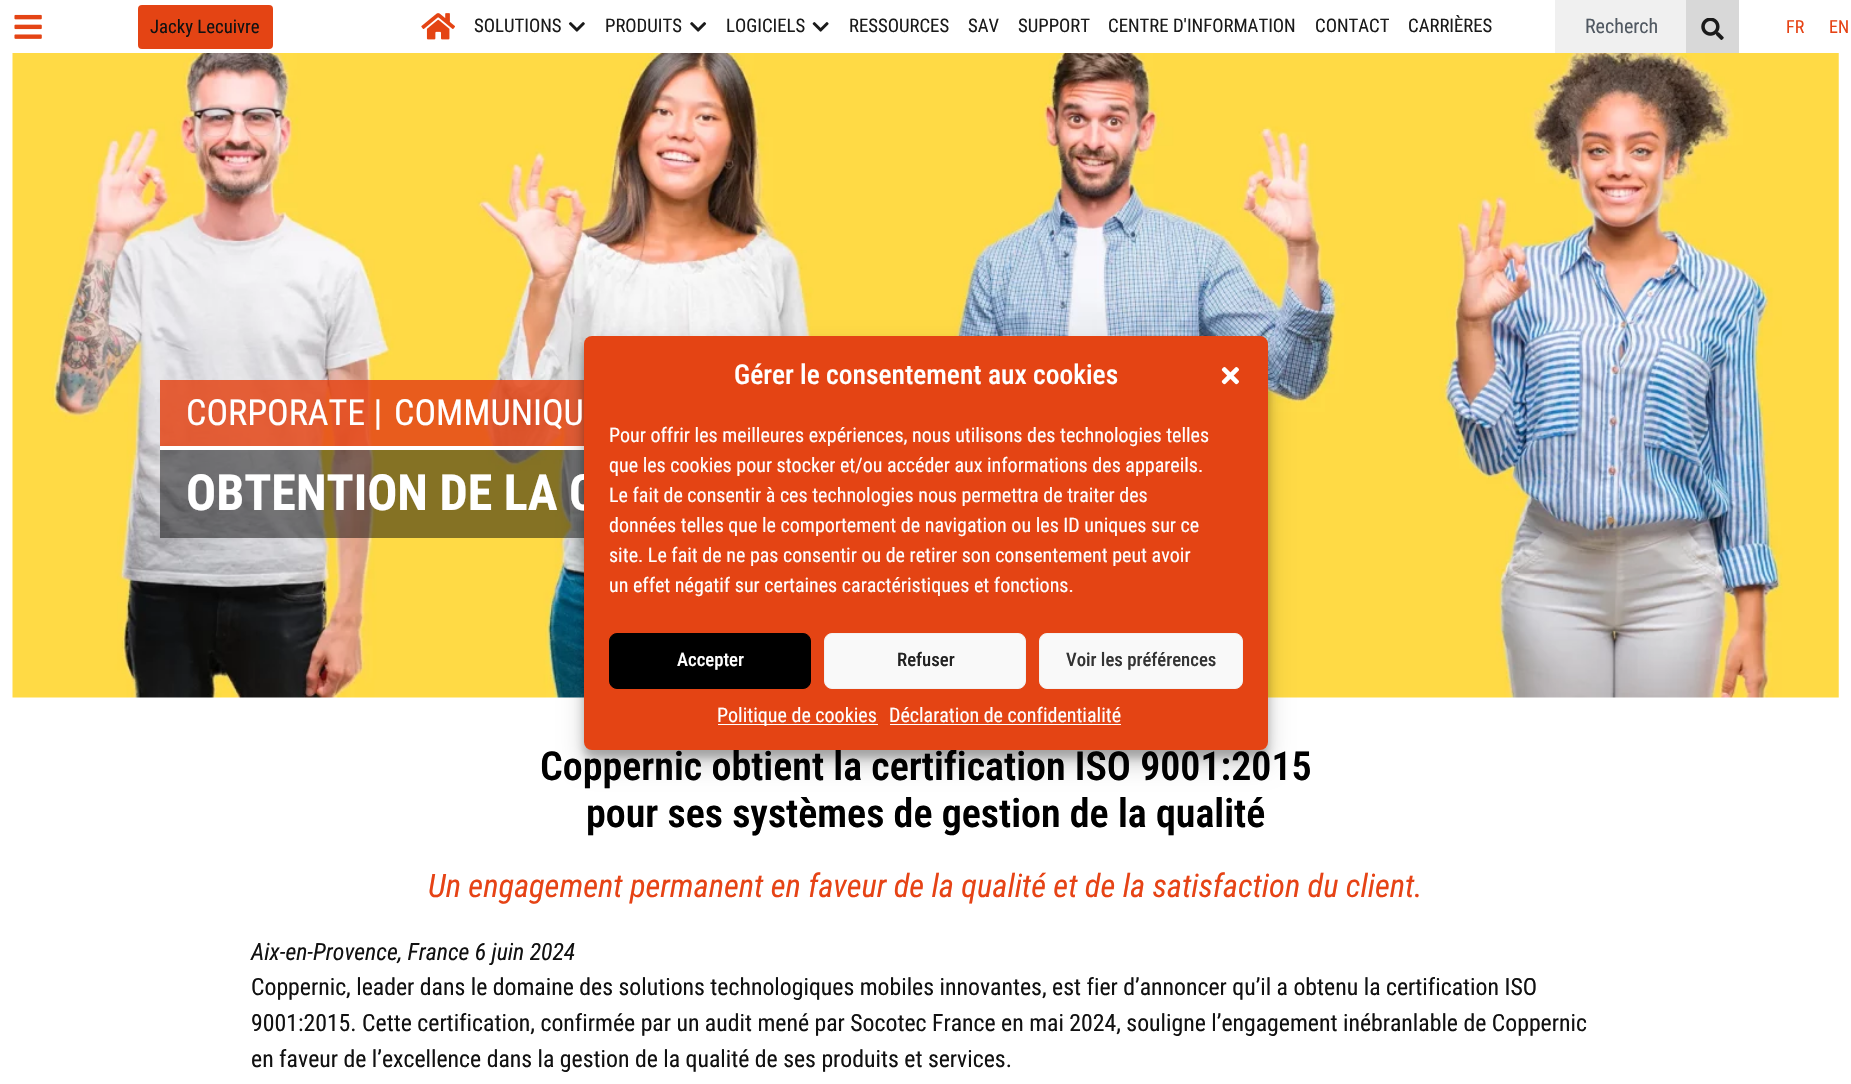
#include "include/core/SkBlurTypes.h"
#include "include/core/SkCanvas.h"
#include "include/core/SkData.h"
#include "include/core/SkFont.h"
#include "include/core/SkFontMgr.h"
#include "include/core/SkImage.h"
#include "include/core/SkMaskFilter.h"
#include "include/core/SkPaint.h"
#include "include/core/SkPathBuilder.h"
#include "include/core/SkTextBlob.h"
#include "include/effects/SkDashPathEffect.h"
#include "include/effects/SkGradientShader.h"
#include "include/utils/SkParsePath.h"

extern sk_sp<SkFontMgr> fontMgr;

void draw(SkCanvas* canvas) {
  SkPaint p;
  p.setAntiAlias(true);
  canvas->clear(SK_ColorWHITE);
  canvas->drawImageRect(SkImages::DeferredFromEncodedData(SkData::MakeFromFileName("images/1.png")), SkRect::MakeLTRB(14, 14, 42, 39), SkSamplingOptions());
  p.setColor(SkColorSetRGB(228, 68, 20));
  canvas->drawRoundRect(SkRect::MakeLTRB(138, 5, 273, 49), 4, 4, p);
  canvas->drawImageRect(SkImages::DeferredFromEncodedData(SkData::MakeFromFileName("images/2.png")), SkRect::MakeLTRB(421, 13, 455, 40), SkSamplingOptions());
  canvas->drawImageRect(SkImages::DeferredFromEncodedData(SkData::MakeFromFileName("images/3.png")), SkRect::MakeLTRB(568, 22, 585, 32), SkSamplingOptions());
  canvas->drawImageRect(SkImages::DeferredFromEncodedData(SkData::MakeFromFileName("images/4.png")), SkRect::MakeLTRB(690, 22, 707, 32), SkSamplingOptions());
  canvas->drawImageRect(SkImages::DeferredFromEncodedData(SkData::MakeFromFileName("images/5.png")), SkRect::MakeLTRB(812, 22, 829, 32), SkSamplingOptions());
  p.setColor(SkColorSetRGB(240, 240, 240));
  canvas->drawRect(SkRect::MakeLTRB(1555, 0, 1686, 53), p);
  p.setColor(SkColorSetRGB(216, 216, 216));
  canvas->drawRect(SkRect::MakeLTRB(1686, 0, 1739, 53), p);
  canvas->drawImageRect(SkImages::DeferredFromEncodedData(SkData::MakeFromFileName("images/6.png")), SkRect::MakeLTRB(1701, 18, 1724, 40), SkSamplingOptions());
  canvas->drawImageRect(SkImages::DeferredFromEncodedData(SkData::MakeFromFileName("images/8.png")), SkRect::MakeLTRB(12, 53, 1839, 698), SkSamplingOptions());
  p.setColor(SkColorSetARGB(214, 228, 68, 20));
  canvas->drawRect(SkRect::MakeLTRB(389, 380, 584, 446), p);
  p.setColor(SkColorSetARGB(122, 0, 0, 0));
  canvas->drawRect(SkRect::MakeLTRB(160, 450, 584, 538), p);
  p.setColor(SK_ColorWHITE);
  canvas->drawRect(SkRect::MakeLTRB(160, 446, 584, 450), p);
  p.setColor(SkColorSetARGB(59, 0, 0, 0));
  p.setMaskFilter(SkMaskFilter::MakeBlur(kNormal_SkBlurStyle, 4));
  canvas->drawRoundRect(SkRect::MakeLTRB(584, 344, 1268, 758), 8, 8, p);
  p.setMaskFilter(nullptr);
  p.setColor(SkColorSetARGB(48, 0, 0, 0));
  p.setMaskFilter(SkMaskFilter::MakeBlur(kNormal_SkBlurStyle, 12.5f));
  canvas->drawRoundRect(SkRect::MakeLTRB(584, 349, 1268, 763), 8, 8, p);
  p.setMaskFilter(nullptr);
  p.setColor(SkColorSetARGB(214, 228, 68, 20));
  canvas->drawRect(SkRect::MakeLTRB(160, 380, 389, 446), p);
  SkFont font1(fontMgr->matchFamilyStyle("Roboto Condensed", SkFontStyle::Normal()), 18.75f);
  font1.setSubpixel(true);
  p.setColor(SkColorSetRGB(17, 17, 17));
  canvas->drawString("Jacky Lecuivre", 150, 33, font1, p);
  p.setColor(SkColorSetRGB(26, 26, 26));
  canvas->drawString("SOLUTIONS", 474, 32, font1, p);
  canvas->drawString("PRODUITS", 605, 32, font1, p);
  canvas->drawString("LOGICIELS", 726, 32, font1, p);
  canvas->drawString("RESSOURCES", 849, 32, font1, p);
  canvas->drawString("SAV", 968, 32, font1, p);
  canvas->drawString("SUPPORT", 1018, 32, font1, p);
  canvas->drawString("CENTRE D'INFORMATION", 1108, 32, font1, p);
  canvas->drawString("CONTACT", 1315, 32, font1, p);
  canvas->drawString("CARRIÈRES", 1408, 32, font1, p);
  SkFont font2(fontMgr->matchFamilyStyle("Roboto Condensed", SkFontStyle::Normal()), 20);
  font2.setSubpixel(true);
  p.setColor(SkColorSetRGB(81, 89, 98));
  canvas->drawString("Recherch", 1585, 33, font2, p);
  SkFont font3(fontMgr->matchFamilyStyle("Roboto Condensed", SkFontStyle::Normal()), 18);
  font3.setSubpixel(true);
  p.setColor(SkColorSetRGB(230, 67, 21));
  canvas->drawString("FR", 1786, 33, font3, p);
  canvas->drawString("EN", 1829, 33, font3, p);
  SkFont font4(fontMgr->matchFamilyStyle("Roboto Condensed", SkFontStyle::Normal()), 36);
  font4.setSubpixel(true);
  p.setColor(SK_ColorWHITE);
  canvas->drawString("CORPORATE |", 186, 425, font4, p);
  canvas->drawString("COMMUNIQU", 394, 425, font4, p);
  SkFont font5(fontMgr->matchFamilyStyle("Roboto Condensed", SkFontStyle::Bold()), 50);
  font5.setSubpixel(true);
  canvas->drawString("OBTENTION DE LA C", 186, 510, font5, p);
  SkFont font6(fontMgr->matchFamilyStyle("Roboto Condensed", SkFontStyle(600, SkFontStyle::kNormal_Width, SkFontStyle::kUpright_Slant)), 40);
  font6.setSubpixel(true);
  p.setColor(SK_ColorBLACK);
  canvas->drawString("Coppernic obtient la certification ISO 9001:2015", 540, 780, font6, p);
  p.setColor(SkColorSetRGB(228, 68, 20));
  canvas->drawRoundRect(SkRect::MakeLTRB(584, 336, 1268, 750), 8, 8, p);
  p.setColor(SK_ColorWHITE);
  canvas->drawString("un effet négatif sur certaines caractéristiques et fonctions.", 609, 592, font2, p);
  canvas->drawString("site. Le fait de ne pas consentir ou de retirer son consentement peut avoir", 609, 562, font2, p);
  canvas->drawString("données telles que le comportement de navigation ou les ID uniques sur ce", 609, 532, font2, p);
  canvas->drawString("Le fait de consentir à ces technologies nous permettra de traiter des", 609, 502, font2, p);
  canvas->drawString("que les cookies pour stocker et/ou accéder aux informations des appareils.", 609, 472, font2, p);
  canvas->drawString("Pour offrir les meilleures expériences, nous utilisons des technologies telles", 609, 442, font2, p);
  canvas->drawImageRect(SkImages::DeferredFromEncodedData(SkData::MakeFromFileName("images/7.png")), SkRect::MakeLTRB(1221, 367, 1239, 385), SkSamplingOptions());
  canvas->drawString("Déclaration de confidentialité", 889, 722, font2, p);
  canvas->drawRect(SkRect::MakeLTRB(890, 724, 1121, 725), p);
  canvas->drawRect(SkRect::MakeLTRB(718, 724, 878, 725), p);
  canvas->drawString("Politique de cookies", 717, 722, font2, p);
  p.setColor(SkColorSetRGB(249, 249, 249));
  canvas->drawRoundRect(SkRect::MakeLTRB(1039.5f, 633.5f, 1242.5f, 688.5f), 7.5f, 7.5f, p);
  p.setStyle(SkPaint::kStroke_Style);
  p.setStrokeWidth(1);
  p.setColor(SkColorSetRGB(242, 242, 242));
  canvas->drawRoundRect(SkRect::MakeLTRB(1039.5f, 633.5f, 1242.5f, 688.5f), 7.5f, 7.5f, p);
  SkFont font7(fontMgr->matchFamilyStyle("Roboto Condensed", SkFontStyle(500, SkFontStyle::kNormal_Width, SkFontStyle::kUpright_Slant)), 18.75f);
  font7.setSubpixel(true);
  p.setStyle(SkPaint::kFill_Style);
  p.setColor(SkColorSetRGB(51, 51, 51));
  canvas->drawString("Voir les préférences", 1066, 666, font7, p);
  p.setColor(SkColorSetRGB(249, 249, 249));
  canvas->drawRoundRect(SkRect::MakeLTRB(824.5f, 633.5f, 1025.5f, 688.5f), 7.5f, 7.5f, p);
  p.setStyle(SkPaint::kStroke_Style);
  p.setColor(SkColorSetRGB(242, 242, 242));
  canvas->drawRoundRect(SkRect::MakeLTRB(824.5f, 633.5f, 1025.5f, 688.5f), 7.5f, 7.5f, p);
  p.setStyle(SkPaint::kFill_Style);
  p.setColor(SkColorSetRGB(34, 34, 34));
  canvas->drawString("Refuser", 897, 666, font7, p);
  p.setColor(SK_ColorBLACK);
  canvas->drawRoundRect(SkRect::MakeLTRB(609.5f, 633.5f, 810.5f, 688.5f), 7.5f, 7.5f, p);
  p.setStyle(SkPaint::kStroke_Style);
  canvas->drawRoundRect(SkRect::MakeLTRB(609.5f, 633.5f, 810.5f, 688.5f), 7.5f, 7.5f, p);
  p.setStyle(SkPaint::kFill_Style);
  p.setColor(SK_ColorWHITE);
  canvas->drawString("Accepter", 677, 666, font7, p);
  SkFont font8(fontMgr->matchFamilyStyle("Roboto Condensed", SkFontStyle(500, SkFontStyle::kNormal_Width, SkFontStyle::kUpright_Slant)), 27.5f);
  font8.setSubpixel(true);
  canvas->drawString("Gérer le consentement aux cookies", 734, 384, font8, p);
  p.setColor(SK_ColorBLACK);
  canvas->drawString("pour ses systèmes de gestion de la qualité", 586, 827, font6, p);
  SkFont font9(fontMgr->matchFamilyStyle("Roboto Condensed", SkFontStyle::Italic()), 32.5f);
  font9.setSubpixel(true);
  p.setColor(SkColorSetRGB(230, 67, 21));
  canvas->drawString("Un engagement permanent en faveur de la qualité et de la satisfaction du client.", 428, 897, font9, p);
  SkFont font10(fontMgr->matchFamilyStyle("Roboto Condensed", SkFontStyle::Italic()), 23.75f);
  font10.setSubpixel(true);
  p.setColor(SkColorSetRGB(17, 17, 17));
  canvas->drawString("Aix-en-Provence, France 6 juin 2024", 251, 960, font10, p);
  SkFont font11(fontMgr->matchFamilyStyle("Roboto Condensed", SkFontStyle::Normal()), 23.75f);
  font11.setSubpixel(true);
  canvas->drawString("Coppernic, leader dans le domaine des solutions technologiques mobiles innovantes, est fier d’annoncer qu’il a obtenu la certification ISO", 251, 995, font11, p);
  canvas->drawString("9001:2015. Cette certification, confirmée par un audit mené par Socotec France en mai 2024, souligne l’engagement inébranlable de Coppernic", 251, 1031, font11, p);
  canvas->drawString("en faveur de l’excellence dans la gestion de la qualité de ses produits et services.", 251, 1067, font11, p);
}
